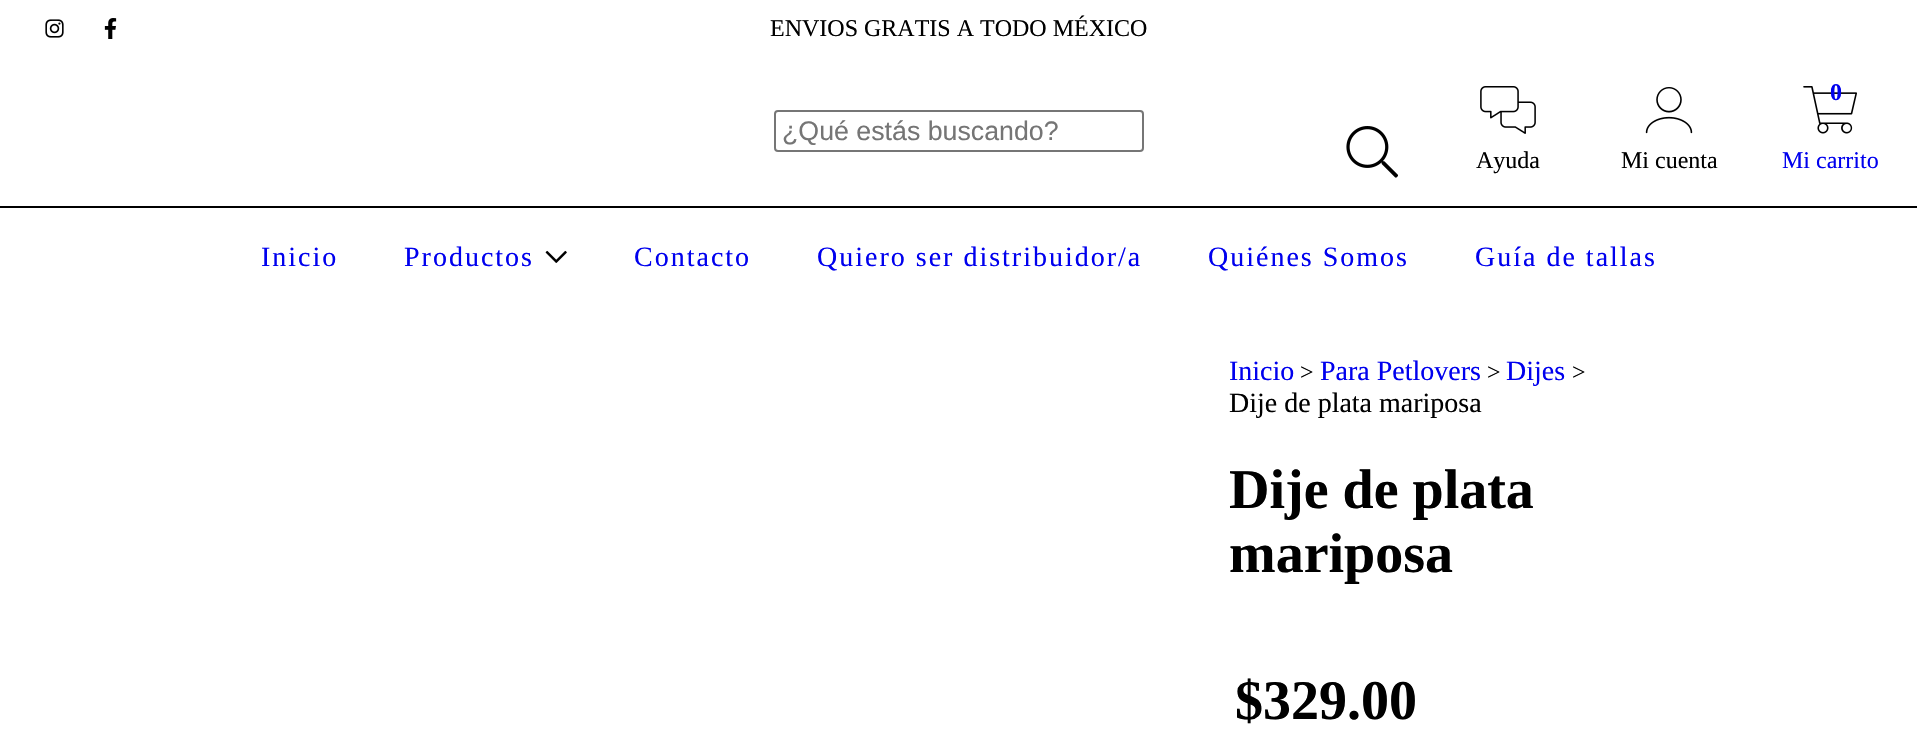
#include "include/core/SkBlurTypes.h"
#include "include/core/SkCanvas.h"
#include "include/core/SkData.h"
#include "include/core/SkFont.h"
#include "include/core/SkFontMgr.h"
#include "include/core/SkImage.h"
#include "include/core/SkMaskFilter.h"
#include "include/core/SkPaint.h"
#include "include/core/SkPathBuilder.h"
#include "include/core/SkTextBlob.h"
#include "include/effects/SkDashPathEffect.h"
#include "include/effects/SkGradientShader.h"
#include "include/utils/SkParsePath.h"

extern sk_sp<SkFontMgr> fontMgr;

void draw(SkCanvas* canvas) {
  SkPaint p;
  p.setAntiAlias(true);
  auto spacedText = [&](const char* s, float x, float y, const SkFont& font, const SkPaint& ink, float letter, float word) {
    std::vector<SkGlyphID> glyphs(font.countText(s, strlen(s), SkTextEncoding::kUTF8));
    std::vector<float> xs(glyphs.size());
    font.textToGlyphs(s, strlen(s), SkTextEncoding::kUTF8, glyphs);
    font.getXPos(glyphs, xs, x);
    float extra = 0;
    for (size_t i = 0; i < glyphs.size(); i++) {
      xs[i] += extra;
      extra += letter + word * (glyphs[i] == font.unicharToGlyph(' '));
    }
    canvas->drawTextBlob(SkTextBlob::MakeFromPosHGlyphs(glyphs, xs, y, font), 0, 0, ink);
  };
  canvas->clear(SK_ColorWHITE);
  canvas->drawImageRect(SkImages::DeferredFromEncodedData(SkData::MakeFromFileName("images/1.png")), SkRect::MakeLTRB(45, 19, 64, 38), SkSamplingOptions());
  canvas->drawImageRect(SkImages::DeferredFromEncodedData(SkData::MakeFromFileName("images/2.png")), SkRect::MakeLTRB(104, 18, 117, 39), SkSamplingOptions());
  p.setStyle(SkPaint::kStroke_Style);
  p.setStrokeWidth(2);
  p.setColor(SkColorSetRGB(118, 118, 118));
  canvas->drawRoundRect(SkRect::MakeLTRB(775, 111, 1143, 151), 3, 3, p);
  canvas->drawImageRect(SkImages::DeferredFromEncodedData(SkData::MakeFromFileName("images/3.png")), SkRect::MakeLTRB(1346, 126, 1398, 178), SkSamplingOptions());
  canvas->drawImageRect(SkImages::DeferredFromEncodedData(SkData::MakeFromFileName("images/4.png")), SkRect::MakeLTRB(1480, 86, 1536, 134), SkSamplingOptions());
  canvas->drawImageRect(SkImages::DeferredFromEncodedData(SkData::MakeFromFileName("images/5.png")), SkRect::MakeLTRB(1645, 87, 1693, 134), SkSamplingOptions());
  canvas->drawImageRect(SkImages::DeferredFromEncodedData(SkData::MakeFromFileName("images/6.png")), SkRect::MakeLTRB(1803, 86, 1857, 134), SkSamplingOptions());
  p.setStyle(SkPaint::kFill_Style);
  p.setColor(SK_ColorBLACK);
  canvas->drawRect(SkRect::MakeLTRB(0, 206, 1917, 208), p);
  canvas->drawImageRect(SkImages::DeferredFromEncodedData(SkData::MakeFromFileName("images/7.png")), SkRect::MakeLTRB(545, 250, 567, 263), SkSamplingOptions());
  SkFont font1(fontMgr->matchFamilyStyle("Liberation Serif", SkFontStyle::Normal()), 24);
  font1.setSubpixel(true);
  canvas->drawString("ENVIOS GRATIS A TODO MÉXICO", 770, 36, font1, p);
  SkFont font2(fontMgr->matchFamilyStyle("Liberation Sans", SkFontStyle::Normal()), 26.75f);
  font2.setSubpixel(true);
  p.setColor(SkColorSetRGB(117, 117, 117));
  canvas->drawString("¿Qué estás buscando?", 782, 140, font2, p);
  p.setColor(SK_ColorBLACK);
  canvas->drawString("Ayuda", 1476, 168, font1, p);
  canvas->drawString("Mi cuenta", 1621, 168, font1, p);
  SkFont font3(fontMgr->matchFamilyStyle("Liberation Serif", SkFontStyle::Bold()), 24);
  font3.setSubpixel(true);
  p.setColor(SkColorSetRGB(0, 0, 238));
  canvas->drawString("0", 1830, 100, font3, p);
  canvas->drawString("Mi carrito", 1782, 168, font1, p);
  SkFont font4(fontMgr->matchFamilyStyle("Liberation Serif", SkFontStyle::Normal()), 28);
  font4.setSubpixel(true);
  spacedText("Inicio", 261, 266, font4, p, 2, 0);
  spacedText("Productos", 404, 266, font4, p, 2, 0);
  spacedText("Contacto", 634, 266, font4, p, 2, 0);
  spacedText("Quiero ser distribuidor/a", 817, 266, font4, p, 2, 0);
  spacedText("Quiénes Somos", 1208, 266, font4, p, 2, 0);
  spacedText("Guía de tallas", 1475, 266, font4, p, 2, 0);
  canvas->drawString("Inicio", 1229, 380, font4, p);
  p.setColor(SK_ColorBLACK);
  canvas->drawString(">", 1300, 380, font1, p);
  p.setColor(SkColorSetRGB(0, 0, 238));
  canvas->drawString("Para Petlovers", 1320, 380, font4, p);
  p.setColor(SK_ColorBLACK);
  canvas->drawString(">", 1487, 380, font1, p);
  p.setColor(SkColorSetRGB(0, 0, 238));
  canvas->drawString("Dijes", 1506, 380, font4, p);
  p.setColor(SK_ColorBLACK);
  canvas->drawString(">", 1572, 380, font1, p);
  canvas->drawString("Dije de plata mariposa", 1229, 412, font4, p);
  SkFont font5(fontMgr->matchFamilyStyle("Liberation Serif", SkFontStyle::Bold()), 56);
  font5.setSubpixel(true);
  canvas->drawString("Dije de plata", 1229, 508, font5, p);
  canvas->drawString("mariposa", 1229, 572, font5, p);
  canvas->drawString("$329.00", 1235, 719, font5, p);
}
